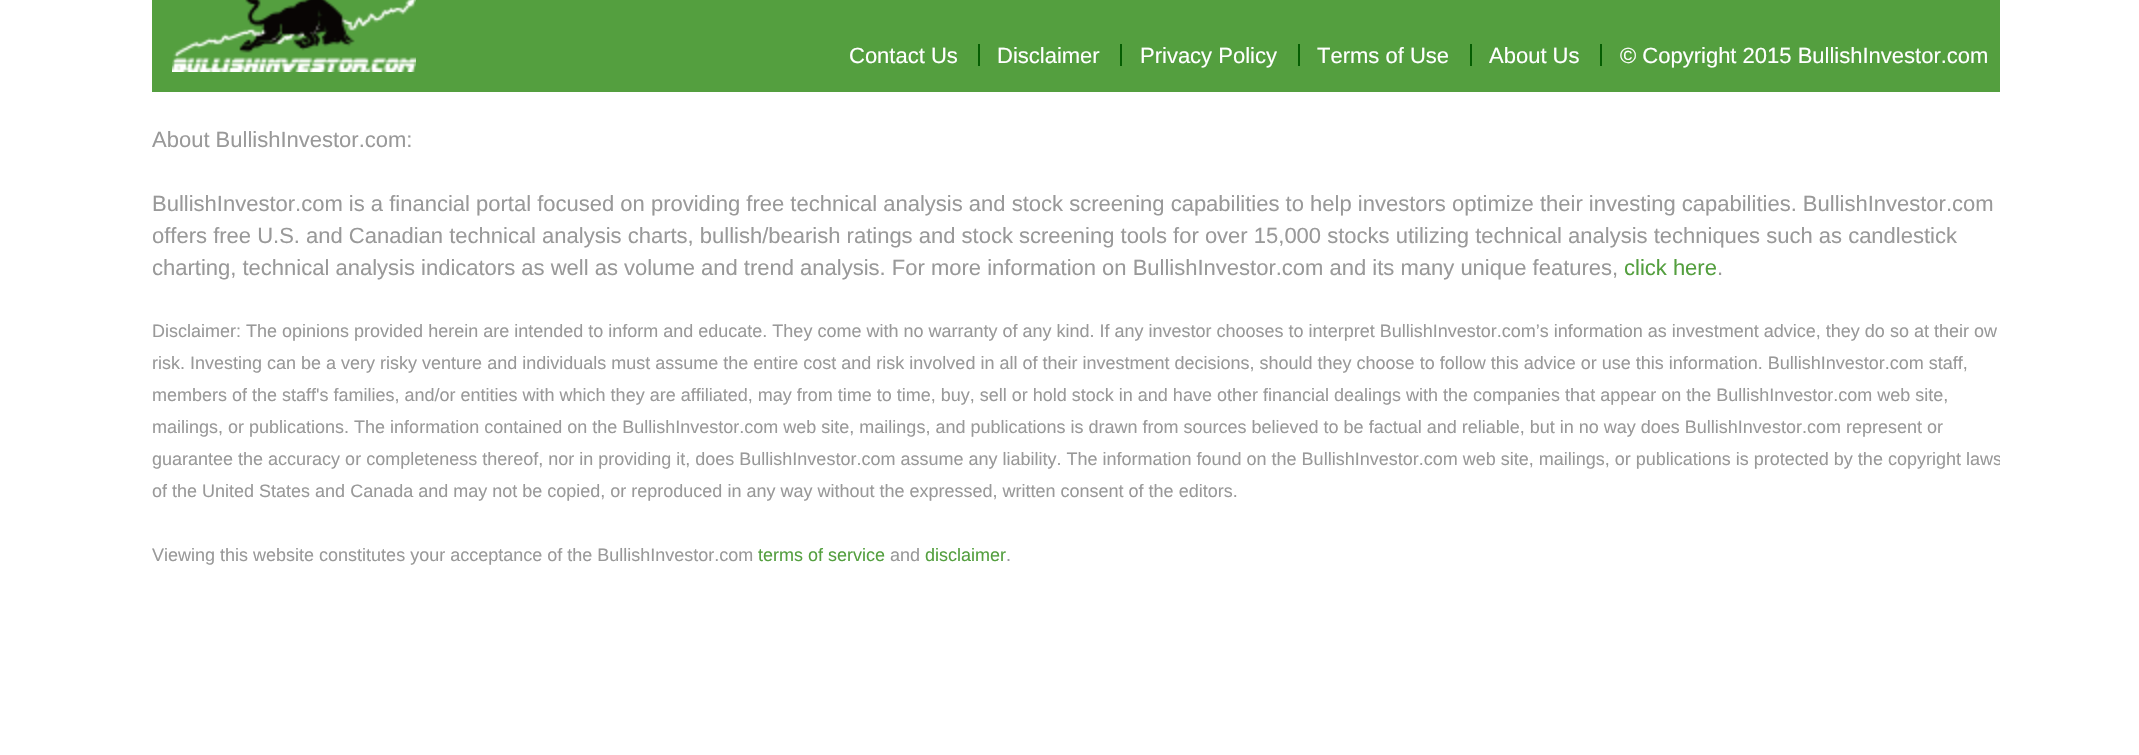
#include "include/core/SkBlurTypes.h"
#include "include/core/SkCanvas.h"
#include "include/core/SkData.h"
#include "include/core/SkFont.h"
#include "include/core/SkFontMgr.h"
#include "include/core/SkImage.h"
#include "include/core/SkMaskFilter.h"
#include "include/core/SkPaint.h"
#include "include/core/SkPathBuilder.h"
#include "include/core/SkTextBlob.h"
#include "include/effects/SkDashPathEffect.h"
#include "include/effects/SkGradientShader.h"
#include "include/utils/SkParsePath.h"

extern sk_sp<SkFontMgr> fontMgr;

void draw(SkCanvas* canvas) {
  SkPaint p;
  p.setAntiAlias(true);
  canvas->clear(SK_ColorWHITE);
  p.setColor(SkColorSetRGB(84, 159, 63));
  canvas->drawRect(SkRect::MakeLTRB(152, 0, 2000, 92), p);
  canvas->drawImageRect(SkImages::DeferredFromEncodedData(SkData::MakeFromFileName("images/1.png")), SkRect::MakeLTRB(172, 0, 416, 72), SkSamplingOptions());
  p.setColor(SkColorSetRGB(5, 94, 3));
  canvas->drawRect(SkRect::MakeLTRB(978, 44, 980, 66), p);
  canvas->drawRect(SkRect::MakeLTRB(1120, 44, 1122, 66), p);
  canvas->drawRect(SkRect::MakeLTRB(1298, 44, 1300, 66), p);
  canvas->drawRect(SkRect::MakeLTRB(1470, 44, 1472, 66), p);
  canvas->drawRect(SkRect::MakeLTRB(1600, 44, 1602, 66), p);
  SkFont font1(fontMgr->matchFamilyStyle("Liberation Sans", SkFontStyle::Normal()), 22);
  font1.setSubpixel(true);
  p.setColor(SK_ColorWHITE);
  canvas->drawString("Contact Us", 849, 63, font1, p);
  canvas->drawString("Disclaimer", 997, 63, font1, p);
  canvas->drawString("Privacy Policy", 1140, 63, font1, p);
  canvas->drawString("Terms of Use", 1317, 63, font1, p);
  canvas->drawString("About Us", 1489, 63, font1, p);
  canvas->drawString("© Copyright 2015 BullishInvestor.com", 1620, 63, font1, p);
  p.setColor(SkColorSetRGB(153, 153, 153));
  canvas->drawString("About BullishInvestor.com:", 152, 147, font1, p);
  canvas->drawString("BullishInvestor.com is a financial portal focused on providing free technical analysis and stock screening capabilities to help investors optimize their investing capabilities. BullishInvestor.com", 152, 211, font1, p);
  canvas->drawString("offers free U.S. and Canadian technical analysis charts, bullish/bearish ratings and stock screening tools for over 15,000 stocks utilizing technical analysis techniques such as candlestick", 152, 243, font1, p);
  canvas->drawString("charting, technical analysis indicators as well as volume and trend analysis. For more information on BullishInvestor.com and its many unique features,", 152, 275, font1, p);
  p.setColor(SkColorSetRGB(84, 159, 63));
  canvas->drawString("click here", 1624, 275, font1, p);
  p.setColor(SkColorSetRGB(153, 153, 153));
  canvas->drawString(".", 1717, 275, font1, p);
  SkFont font2(fontMgr->matchFamilyStyle("Liberation Sans", SkFontStyle::Normal()), 18);
  font2.setSubpixel(true);
  canvas->drawString("Disclaimer: The opinions provided herein are intended to inform and educate. They come with no warranty of any kind. If any investor chooses to interpret BullishInvestor.com’s information as investment advice, they do so at their ow", 152, 337, font2, p);
  canvas->drawString("risk. Investing can be a very risky venture and individuals must assume the entire cost and risk involved in all of their investment decisions, should they choose to follow this advice or use this information. BullishInvestor.com staff,", 152, 369, font2, p);
  canvas->drawString("members of the staff's families, and/or entities with which they are affiliated, may from time to time, buy, sell or hold stock in and have other financial dealings with the companies that appear on the BullishInvestor.com web site,", 152, 401, font2, p);
  canvas->drawString("mailings, or publications. The information contained on the BullishInvestor.com web site, mailings, and publications is drawn from sources believed to be factual and reliable, but in no way does BullishInvestor.com represent or", 152, 433, font2, p);
  canvas->save();
  canvas->clipRect(SkRect::MakeLTRB(152, 0, 2000, 696));
  canvas->drawString("guarantee the accuracy or completeness thereof, nor in providing it, does BullishInvestor.com assume any liability. The information found on the BullishInvestor.com web site, mailings, or publications is protected by the copyright laws", 152, 465, font2, p);
  canvas->restore();
  canvas->drawString("of the United States and Canada and may not be copied, or reproduced in any way without the expressed, written consent of the editors.", 152, 497, font2, p);
  canvas->drawString("Viewing this website constitutes your acceptance of the BullishInvestor.com", 152, 561, font2, p);
  p.setColor(SkColorSetRGB(84, 159, 63));
  canvas->drawString("terms of service", 758, 561, font2, p);
  p.setColor(SkColorSetRGB(153, 153, 153));
  canvas->drawString("and", 890, 561, font2, p);
  p.setColor(SkColorSetRGB(84, 159, 63));
  canvas->drawString("disclaimer", 925, 561, font2, p);
  p.setColor(SkColorSetRGB(153, 153, 153));
  canvas->drawString(".", 1006, 561, font2, p);
}
